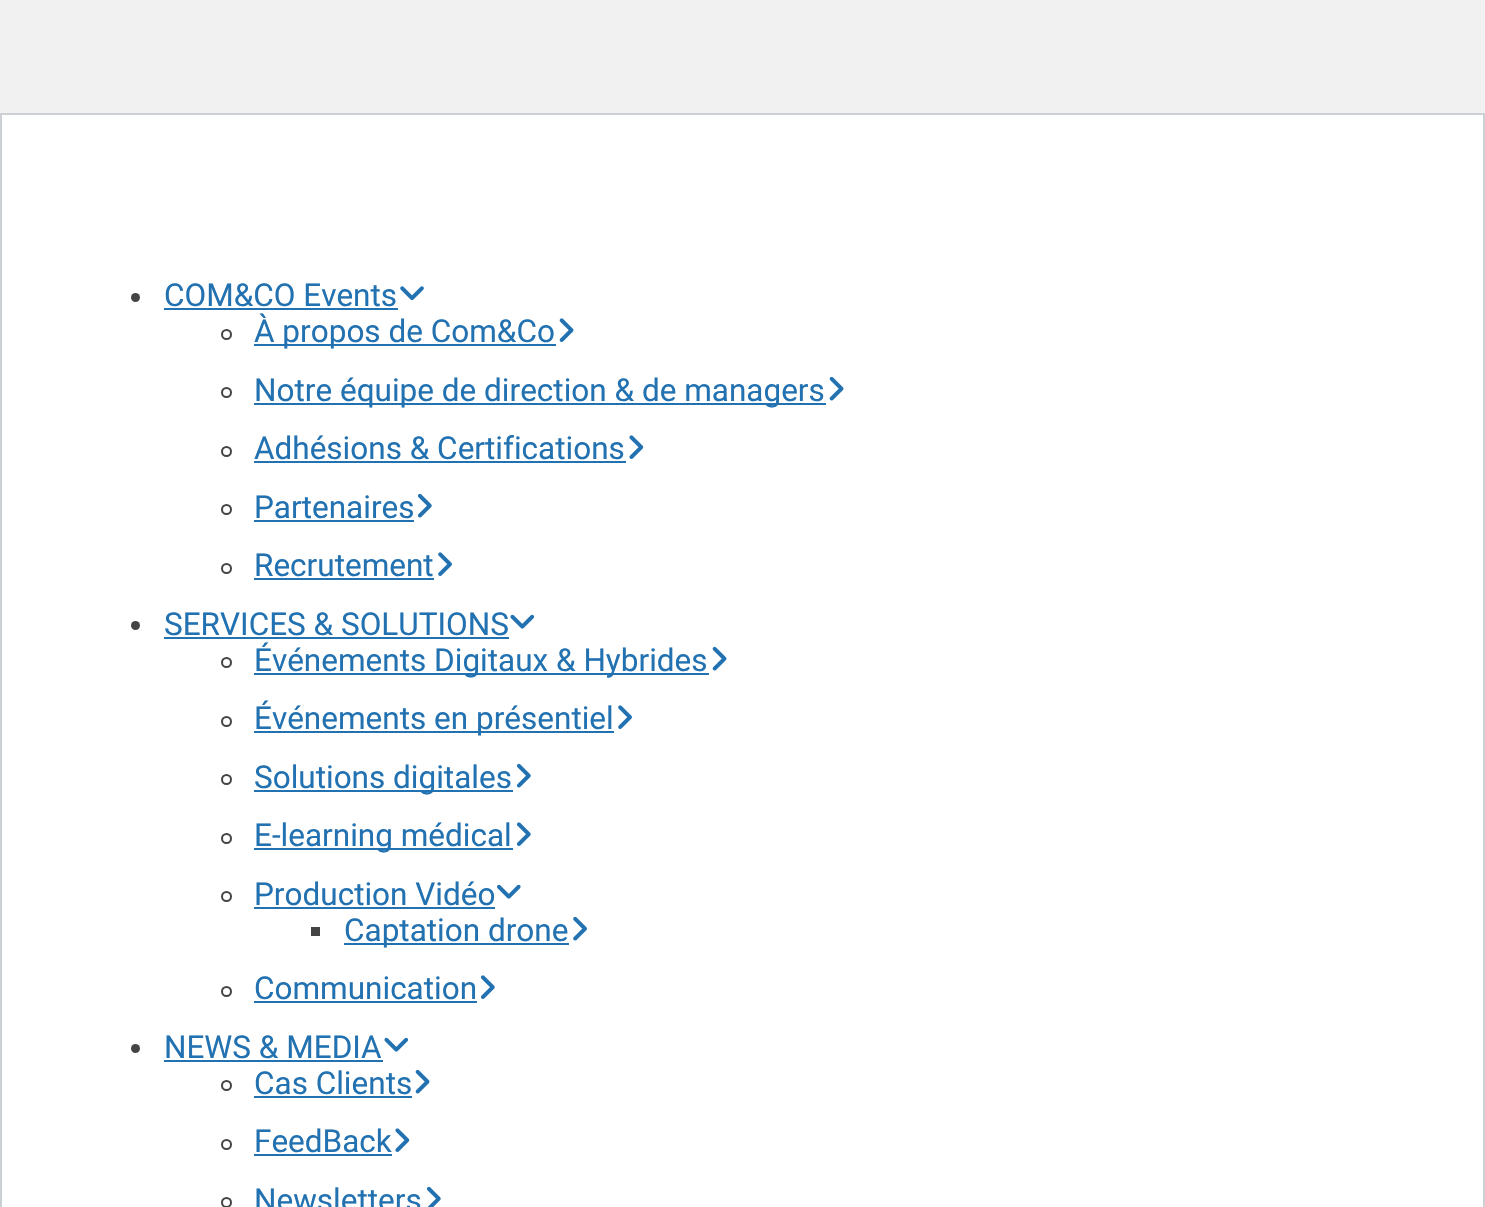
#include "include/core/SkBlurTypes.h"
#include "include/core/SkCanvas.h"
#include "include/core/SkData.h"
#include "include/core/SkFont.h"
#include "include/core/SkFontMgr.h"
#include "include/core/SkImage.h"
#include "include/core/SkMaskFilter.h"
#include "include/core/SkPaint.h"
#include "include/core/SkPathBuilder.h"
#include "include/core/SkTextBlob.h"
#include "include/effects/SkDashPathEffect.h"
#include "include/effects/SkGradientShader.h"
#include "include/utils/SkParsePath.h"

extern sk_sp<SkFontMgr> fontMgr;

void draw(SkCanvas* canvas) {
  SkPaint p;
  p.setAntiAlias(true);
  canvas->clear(SkColorSetRGB(241, 241, 241));
  p.setColor(SK_ColorWHITE);
  canvas->drawRect(SkRect::MakeLTRB(1, 114, 1484, 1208), p);
  p.setStyle(SkPaint::kStroke_Style);
  p.setStrokeWidth(2);
  p.setColor(SkColorSetRGB(204, 208, 212));
  canvas->drawRect(SkRect::MakeLTRB(1, 114, 1484, 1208), p);
  p.setStyle(SkPaint::kFill_Style);
  p.setColor(SkColorSetRGB(68, 68, 68));
  canvas->drawCircle(135.5f, 297.5f, 4.5f, p);
  p.setColor(SkColorSetRGB(34, 113, 177));
  canvas->drawRect(SkRect::MakeLTRB(164, 308, 398, 310), p);
  canvas->drawImageRect(SkImages::DeferredFromEncodedData(SkData::MakeFromFileName("images/1.png")), SkRect::MakeLTRB(400, 286, 424, 301), SkSamplingOptions());
  p.setStyle(SkPaint::kStroke_Style);
  p.setColor(SkColorSetRGB(68, 68, 68));
  canvas->drawCircle(226.5f, 334.5f, 4.5f, p);
  p.setStyle(SkPaint::kFill_Style);
  p.setColor(SkColorSetRGB(34, 113, 177));
  canvas->drawRect(SkRect::MakeLTRB(254, 344, 556, 346), p);
  canvas->drawImageRect(SkImages::DeferredFromEncodedData(SkData::MakeFromFileName("images/2.png")), SkRect::MakeLTRB(559, 318, 574, 342), SkSamplingOptions());
  p.setStyle(SkPaint::kStroke_Style);
  p.setColor(SkColorSetRGB(68, 68, 68));
  canvas->drawCircle(226.5f, 392.5f, 4.5f, p);
  p.setStyle(SkPaint::kFill_Style);
  p.setColor(SkColorSetRGB(34, 113, 177));
  canvas->drawRect(SkRect::MakeLTRB(254, 403, 826, 405), p);
  canvas->drawImageRect(SkImages::DeferredFromEncodedData(SkData::MakeFromFileName("images/3.png")), SkRect::MakeLTRB(829, 376, 844, 401), SkSamplingOptions());
  p.setStyle(SkPaint::kStroke_Style);
  p.setColor(SkColorSetRGB(68, 68, 68));
  canvas->drawCircle(226.5f, 451.5f, 4.5f, p);
  p.setStyle(SkPaint::kFill_Style);
  p.setColor(SkColorSetRGB(34, 113, 177));
  canvas->drawRect(SkRect::MakeLTRB(254, 461, 626, 463), p);
  canvas->drawImageRect(SkImages::DeferredFromEncodedData(SkData::MakeFromFileName("images/4.png")), SkRect::MakeLTRB(629, 435, 644, 459), SkSamplingOptions());
  p.setStyle(SkPaint::kStroke_Style);
  p.setColor(SkColorSetRGB(68, 68, 68));
  canvas->drawCircle(226.5f, 509.5f, 4.5f, p);
  p.setStyle(SkPaint::kFill_Style);
  p.setColor(SkColorSetRGB(34, 113, 177));
  canvas->drawRect(SkRect::MakeLTRB(254, 520, 414, 522), p);
  canvas->drawImageRect(SkImages::DeferredFromEncodedData(SkData::MakeFromFileName("images/5.png")), SkRect::MakeLTRB(417, 493, 432, 518), SkSamplingOptions());
  p.setStyle(SkPaint::kStroke_Style);
  p.setColor(SkColorSetRGB(68, 68, 68));
  canvas->drawCircle(226.5f, 568.5f, 4.5f, p);
  p.setStyle(SkPaint::kFill_Style);
  p.setColor(SkColorSetRGB(34, 113, 177));
  canvas->drawRect(SkRect::MakeLTRB(254, 578, 434, 580), p);
  canvas->drawImageRect(SkImages::DeferredFromEncodedData(SkData::MakeFromFileName("images/6.png")), SkRect::MakeLTRB(438, 552, 452, 576), SkSamplingOptions());
  p.setColor(SkColorSetRGB(68, 68, 68));
  canvas->drawCircle(135.5f, 625.5f, 4.5f, p);
  p.setColor(SkColorSetRGB(34, 113, 177));
  canvas->drawRect(SkRect::MakeLTRB(164, 637, 509, 639), p);
  canvas->drawImageRect(SkImages::DeferredFromEncodedData(SkData::MakeFromFileName("images/7.png")), SkRect::MakeLTRB(510, 614, 535, 629), SkSamplingOptions());
  p.setStyle(SkPaint::kStroke_Style);
  p.setColor(SkColorSetRGB(68, 68, 68));
  canvas->drawCircle(226.5f, 662.5f, 4.5f, p);
  p.setStyle(SkPaint::kFill_Style);
  p.setColor(SkColorSetRGB(34, 113, 177));
  canvas->drawRect(SkRect::MakeLTRB(254, 673, 709, 675), p);
  canvas->drawImageRect(SkImages::DeferredFromEncodedData(SkData::MakeFromFileName("images/3.png")), SkRect::MakeLTRB(712, 646, 727, 671), SkSamplingOptions());
  p.setStyle(SkPaint::kStroke_Style);
  p.setColor(SkColorSetRGB(68, 68, 68));
  canvas->drawCircle(226.5f, 721.5f, 4.5f, p);
  p.setStyle(SkPaint::kFill_Style);
  p.setColor(SkColorSetRGB(34, 113, 177));
  canvas->drawRect(SkRect::MakeLTRB(254, 731, 614, 733), p);
  canvas->drawImageRect(SkImages::DeferredFromEncodedData(SkData::MakeFromFileName("images/6.png")), SkRect::MakeLTRB(618, 705, 632, 729), SkSamplingOptions());
  p.setStyle(SkPaint::kStroke_Style);
  p.setColor(SkColorSetRGB(68, 68, 68));
  canvas->drawCircle(226.5f, 779.5f, 4.5f, p);
  p.setStyle(SkPaint::kFill_Style);
  p.setColor(SkColorSetRGB(34, 113, 177));
  canvas->drawRect(SkRect::MakeLTRB(254, 790, 513, 792), p);
  canvas->drawImageRect(SkImages::DeferredFromEncodedData(SkData::MakeFromFileName("images/5.png")), SkRect::MakeLTRB(516, 763, 531, 788), SkSamplingOptions());
  p.setStyle(SkPaint::kStroke_Style);
  p.setColor(SkColorSetRGB(68, 68, 68));
  canvas->drawCircle(226.5f, 838.5f, 4.5f, p);
  p.setStyle(SkPaint::kFill_Style);
  p.setColor(SkColorSetRGB(34, 113, 177));
  canvas->drawRect(SkRect::MakeLTRB(254, 848, 513, 850), p);
  canvas->drawImageRect(SkImages::DeferredFromEncodedData(SkData::MakeFromFileName("images/8.png")), SkRect::MakeLTRB(516, 822, 531, 846), SkSamplingOptions());
  p.setStyle(SkPaint::kStroke_Style);
  p.setColor(SkColorSetRGB(68, 68, 68));
  canvas->drawCircle(226.5f, 896.5f, 4.5f, p);
  p.setStyle(SkPaint::kFill_Style);
  p.setColor(SkColorSetRGB(34, 113, 177));
  canvas->drawRect(SkRect::MakeLTRB(254, 907, 495, 909), p);
  canvas->drawImageRect(SkImages::DeferredFromEncodedData(SkData::MakeFromFileName("images/9.png")), SkRect::MakeLTRB(497, 884, 521, 899), SkSamplingOptions());
  p.setColor(SkColorSetRGB(68, 68, 68));
  canvas->drawRect(SkRect::MakeLTRB(311, 927, 320, 936), p);
  p.setColor(SkColorSetRGB(34, 113, 177));
  canvas->drawRect(SkRect::MakeLTRB(344, 943, 569, 945), p);
  canvas->drawImageRect(SkImages::DeferredFromEncodedData(SkData::MakeFromFileName("images/10.png")), SkRect::MakeLTRB(573, 916, 587, 941), SkSamplingOptions());
  p.setStyle(SkPaint::kStroke_Style);
  p.setColor(SkColorSetRGB(68, 68, 68));
  canvas->drawCircle(226.5f, 991.5f, 4.5f, p);
  p.setStyle(SkPaint::kFill_Style);
  p.setColor(SkColorSetRGB(34, 113, 177));
  canvas->drawRect(SkRect::MakeLTRB(254, 1001, 477, 1003), p);
  canvas->drawImageRect(SkImages::DeferredFromEncodedData(SkData::MakeFromFileName("images/8.png")), SkRect::MakeLTRB(480, 975, 495, 999), SkSamplingOptions());
  p.setColor(SkColorSetRGB(68, 68, 68));
  canvas->drawCircle(135.5f, 1048.5f, 4.5f, p);
  p.setColor(SkColorSetRGB(34, 113, 177));
  canvas->drawRect(SkRect::MakeLTRB(164, 1060, 383, 1062), p);
  canvas->drawImageRect(SkImages::DeferredFromEncodedData(SkData::MakeFromFileName("images/7.png")), SkRect::MakeLTRB(384, 1037, 409, 1052), SkSamplingOptions());
  p.setStyle(SkPaint::kStroke_Style);
  p.setColor(SkColorSetRGB(68, 68, 68));
  canvas->drawCircle(226.5f, 1085.5f, 4.5f, p);
  p.setStyle(SkPaint::kFill_Style);
  p.setColor(SkColorSetRGB(34, 113, 177));
  canvas->drawRect(SkRect::MakeLTRB(254, 1096, 412, 1098), p);
  canvas->drawImageRect(SkImages::DeferredFromEncodedData(SkData::MakeFromFileName("images/3.png")), SkRect::MakeLTRB(415, 1069, 430, 1094), SkSamplingOptions());
  p.setStyle(SkPaint::kStroke_Style);
  p.setColor(SkColorSetRGB(68, 68, 68));
  canvas->drawCircle(226.5f, 1144.5f, 4.5f, p);
  p.setStyle(SkPaint::kFill_Style);
  p.setColor(SkColorSetRGB(34, 113, 177));
  canvas->drawRect(SkRect::MakeLTRB(254, 1154, 392, 1156), p);
  canvas->drawImageRect(SkImages::DeferredFromEncodedData(SkData::MakeFromFileName("images/4.png")), SkRect::MakeLTRB(395, 1128, 410, 1152), SkSamplingOptions());
  p.setStyle(SkPaint::kStroke_Style);
  p.setColor(SkColorSetRGB(68, 68, 68));
  canvas->drawCircle(226.5f, 1202.5f, 4.5f, p);
  canvas->drawImageRect(SkImages::DeferredFromEncodedData(SkData::MakeFromFileName("images/11.png")), SkRect::MakeLTRB(427, 1186, 441, 1207), SkSamplingOptions());
  SkFont font1(fontMgr->matchFamilyStyle("Roboto", SkFontStyle::Normal()), 31.5f);
  font1.setSubpixel(true);
  p.setStyle(SkPaint::kFill_Style);
  p.setColor(SkColorSetRGB(34, 113, 177));
  canvas->drawString("COM&CO Events", 164, 306, font1, p);
  canvas->drawString("À propos de Com&Co", 254, 342, font1, p);
  canvas->drawString("Notre équipe de direction & de managers", 254, 401, font1, p);
  canvas->drawString("Adhésions & Certifications", 254, 459, font1, p);
  canvas->drawString("Partenaires", 254, 518, font1, p);
  canvas->drawString("Recrutement", 254, 576, font1, p);
  canvas->drawString("SERVICES & SOLUTIONS", 164, 635, font1, p);
  canvas->drawString("Événements Digitaux & Hybrides", 254, 671, font1, p);
  canvas->drawString("Événements en présentiel", 254, 729, font1, p);
  canvas->drawString("Solutions digitales", 254, 788, font1, p);
  canvas->drawString("E-learning médical", 254, 846, font1, p);
  canvas->drawString("Production Vidéo", 254, 905, font1, p);
  canvas->drawString("Captation drone", 344, 941, font1, p);
  canvas->drawString("Communication", 254, 999, font1, p);
  canvas->drawString("NEWS & MEDIA", 164, 1058, font1, p);
  canvas->drawString("Cas Clients", 254, 1094, font1, p);
  canvas->drawString("FeedBack", 254, 1152, font1, p);
  canvas->drawString("Newsletters", 254, 1211, font1, p);
}
